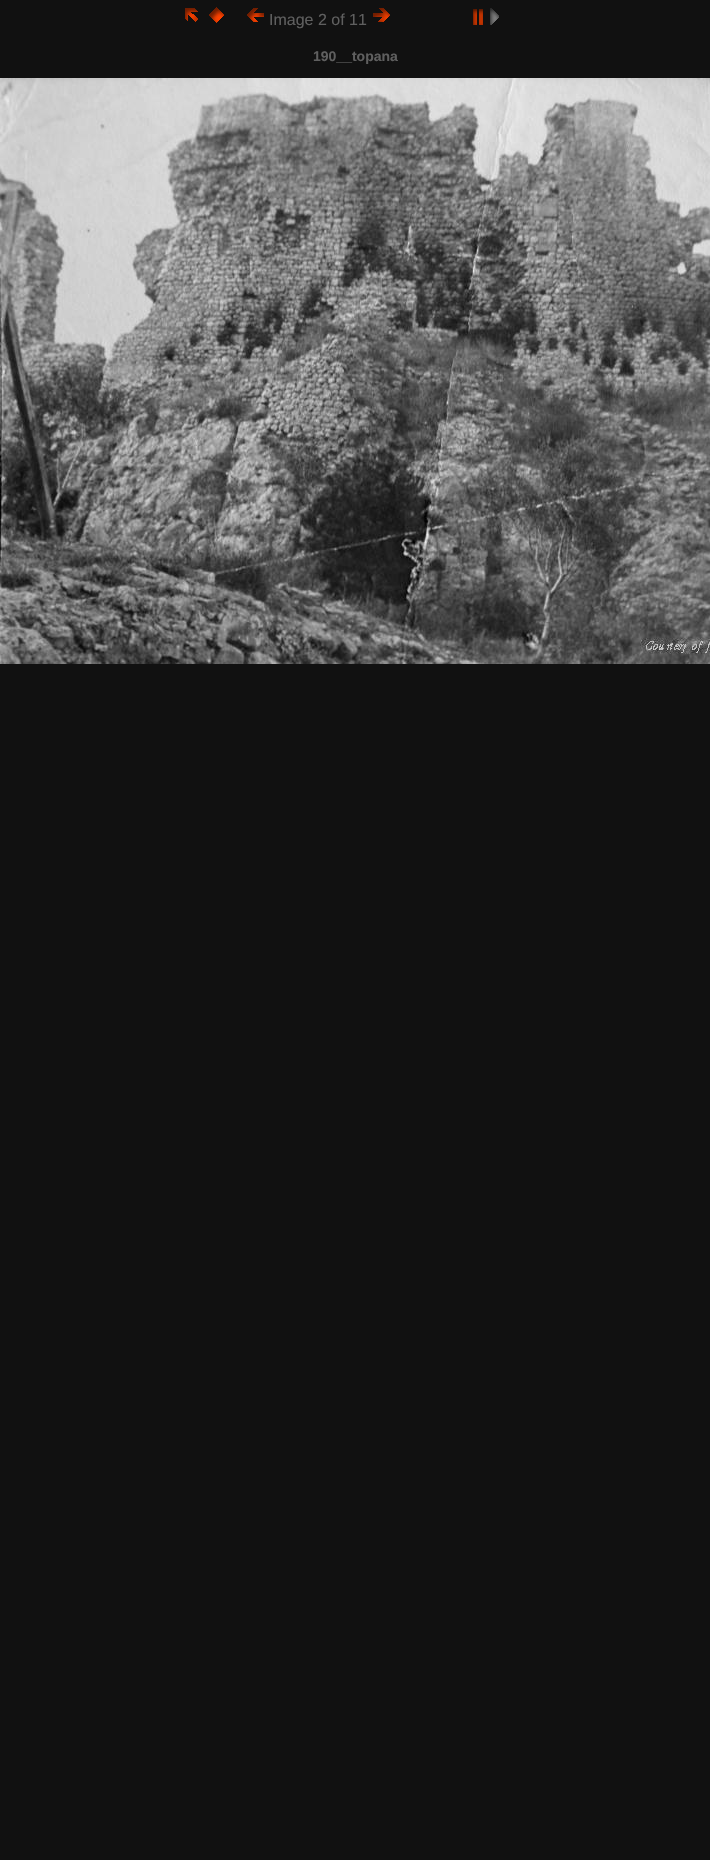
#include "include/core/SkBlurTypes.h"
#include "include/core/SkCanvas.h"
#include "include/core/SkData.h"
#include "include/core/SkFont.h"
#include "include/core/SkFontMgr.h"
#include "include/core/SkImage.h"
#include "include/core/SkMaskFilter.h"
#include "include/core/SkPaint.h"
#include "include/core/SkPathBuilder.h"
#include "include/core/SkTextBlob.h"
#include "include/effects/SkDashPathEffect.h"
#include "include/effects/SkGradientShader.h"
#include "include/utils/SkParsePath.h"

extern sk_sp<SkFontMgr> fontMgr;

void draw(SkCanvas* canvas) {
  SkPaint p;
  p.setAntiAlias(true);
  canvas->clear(SkColorSetRGB(17, 17, 17));
  canvas->drawImageRect(SkImages::DeferredFromEncodedData(SkData::MakeFromFileName("images/1.png")), SkRect::MakeLTRB(185, 8, 198, 22), SkSamplingOptions());
  canvas->drawImageRect(SkImages::DeferredFromEncodedData(SkData::MakeFromFileName("images/2.png")), SkRect::MakeLTRB(209, 7, 224, 23), SkSamplingOptions());
  canvas->drawImageRect(SkImages::DeferredFromEncodedData(SkData::MakeFromFileName("images/3.png")), SkRect::MakeLTRB(247, 8, 264, 22), SkSamplingOptions());
  canvas->drawImageRect(SkImages::DeferredFromEncodedData(SkData::MakeFromFileName("images/4.png")), SkRect::MakeLTRB(373, 8, 390, 22), SkSamplingOptions());
  canvas->drawImageRect(SkImages::DeferredFromEncodedData(SkData::MakeFromFileName("images/5.png")), SkRect::MakeLTRB(473, 8, 499, 25), SkSamplingOptions());
  canvas->drawImageRect(SkImages::DeferredFromEncodedData(SkData::MakeFromFileName("images/6.png")), SkRect::MakeLTRB(0, 78, 710, 664), SkSamplingOptions());
  SkFont font1(fontMgr->matchFamilyStyle("Liberation Sans", SkFontStyle::Normal()), 16);
  font1.setSubpixel(true);
  p.setColor(SkColorSetRGB(95, 95, 95));
  canvas->drawString("Image 2 of 11", 269, 25, font1, p);
  SkFont font2(fontMgr->matchFamilyStyle("Liberation Sans", SkFontStyle::Bold()), 14);
  font2.setSubpixel(true);
  canvas->drawString("190__topana", 313, 61, font2, p);
}
